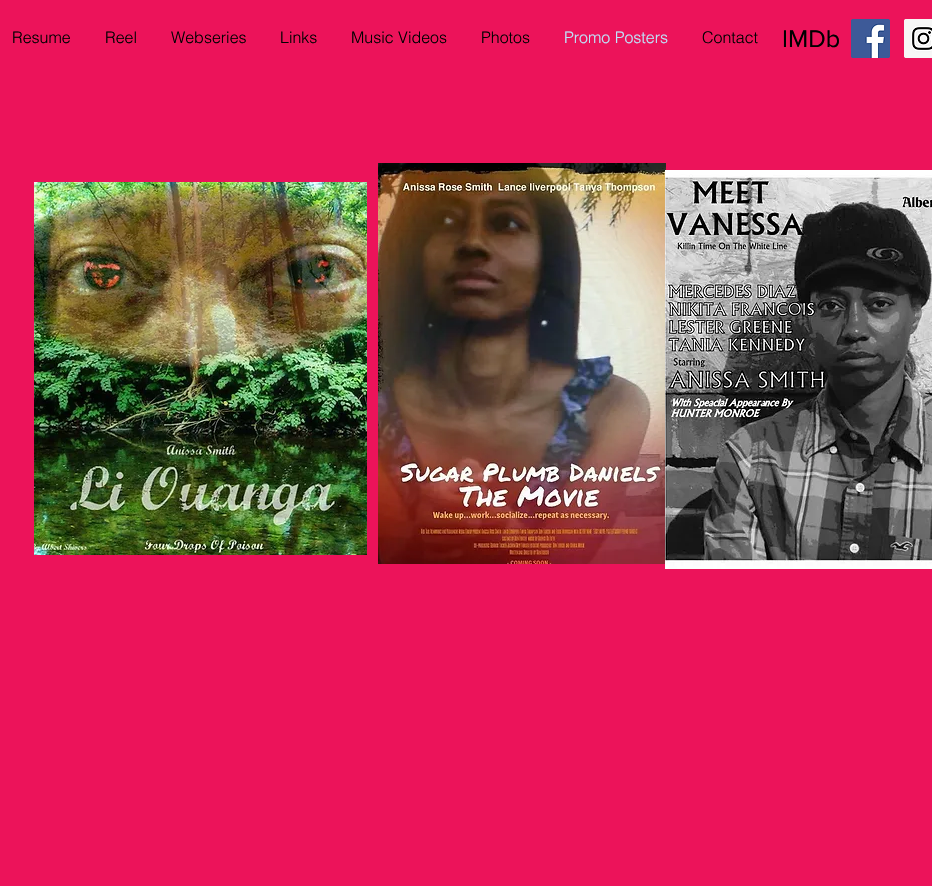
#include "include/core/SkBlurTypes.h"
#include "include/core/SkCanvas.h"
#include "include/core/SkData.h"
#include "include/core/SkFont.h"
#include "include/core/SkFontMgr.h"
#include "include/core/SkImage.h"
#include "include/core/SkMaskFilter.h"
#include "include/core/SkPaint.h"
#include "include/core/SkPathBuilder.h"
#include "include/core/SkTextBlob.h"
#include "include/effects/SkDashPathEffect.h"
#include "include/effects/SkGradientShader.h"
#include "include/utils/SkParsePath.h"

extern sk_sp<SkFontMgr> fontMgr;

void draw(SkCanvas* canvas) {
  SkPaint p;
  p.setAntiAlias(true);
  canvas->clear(SkColorSetRGB(236, 19, 90));
  canvas->drawImageRect(SkImages::DeferredFromEncodedData(SkData::MakeFromFileName("images/1.png")), SkRect::MakeLTRB(851, 19, 890, 58), SkSamplingOptions());
  canvas->drawImageRect(SkImages::DeferredFromEncodedData(SkData::MakeFromFileName("images/2.png")), SkRect::MakeLTRB(904, 19, 932, 58), SkSamplingOptions());
  canvas->drawImageRect(SkImages::DeferredFromEncodedData(SkData::MakeFromFileName("images/3.png")), SkRect::MakeLTRB(34, 182, 367, 555), SkSamplingOptions());
  canvas->drawImageRect(SkImages::DeferredFromEncodedData(SkData::MakeFromFileName("images/4.png")), SkRect::MakeLTRB(378, 163, 666, 564), SkSamplingOptions());
  canvas->drawImageRect(SkImages::DeferredFromEncodedData(SkData::MakeFromFileName("images/5.png")), SkRect::MakeLTRB(665, 170, 932, 569), SkSamplingOptions());
  SkFont font1(fontMgr->matchFamilyStyle("helvetica", SkFontStyle(300, SkFontStyle::kNormal_Width, SkFontStyle::kUpright_Slant)), 16);
  font1.setSubpixel(true);
  p.setColor(SK_ColorBLACK);
  canvas->drawString("Resume", 12, 43, font1, p);
  canvas->drawString("Reel", 105, 43, font1, p);
  canvas->drawString("Webseries", 171, 43, font1, p);
  canvas->drawString("Links", 280, 43, font1, p);
  canvas->drawString("Music Videos", 351, 43, font1, p);
  canvas->drawString("Photos", 481, 43, font1, p);
  p.setColor(SkColorSetRGB(190, 229, 251));
  canvas->drawString("Promo Posters", 564, 43, font1, p);
  p.setColor(SK_ColorBLACK);
  canvas->drawString("Contact", 702, 43, font1, p);
  SkFont font2(fontMgr->matchFamilyStyle("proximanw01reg", SkFontStyle::Normal()), 25);
  font2.setSubpixel(true);
  canvas->drawString("IMDb", 782, 47, font2, p);
}
